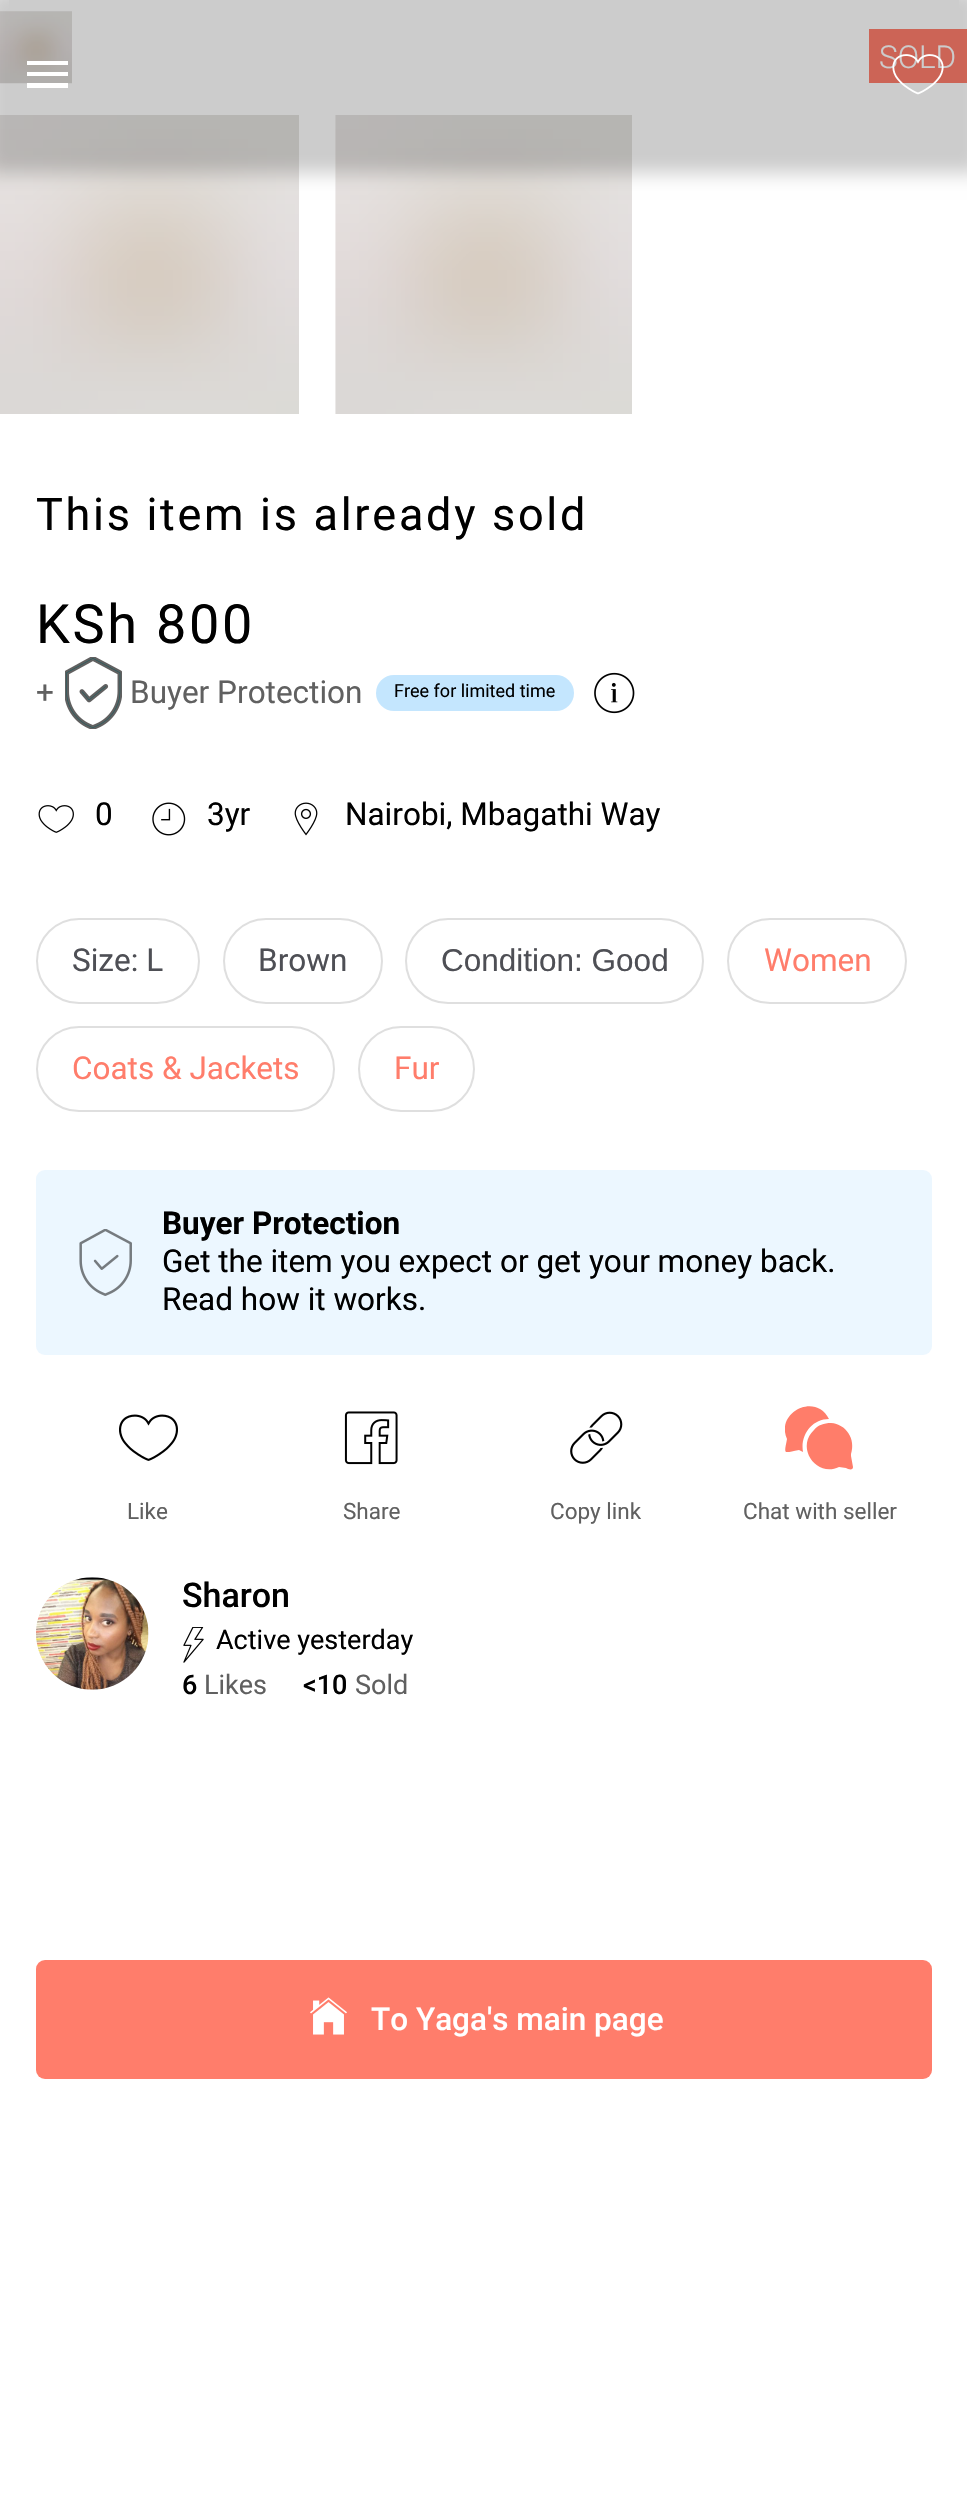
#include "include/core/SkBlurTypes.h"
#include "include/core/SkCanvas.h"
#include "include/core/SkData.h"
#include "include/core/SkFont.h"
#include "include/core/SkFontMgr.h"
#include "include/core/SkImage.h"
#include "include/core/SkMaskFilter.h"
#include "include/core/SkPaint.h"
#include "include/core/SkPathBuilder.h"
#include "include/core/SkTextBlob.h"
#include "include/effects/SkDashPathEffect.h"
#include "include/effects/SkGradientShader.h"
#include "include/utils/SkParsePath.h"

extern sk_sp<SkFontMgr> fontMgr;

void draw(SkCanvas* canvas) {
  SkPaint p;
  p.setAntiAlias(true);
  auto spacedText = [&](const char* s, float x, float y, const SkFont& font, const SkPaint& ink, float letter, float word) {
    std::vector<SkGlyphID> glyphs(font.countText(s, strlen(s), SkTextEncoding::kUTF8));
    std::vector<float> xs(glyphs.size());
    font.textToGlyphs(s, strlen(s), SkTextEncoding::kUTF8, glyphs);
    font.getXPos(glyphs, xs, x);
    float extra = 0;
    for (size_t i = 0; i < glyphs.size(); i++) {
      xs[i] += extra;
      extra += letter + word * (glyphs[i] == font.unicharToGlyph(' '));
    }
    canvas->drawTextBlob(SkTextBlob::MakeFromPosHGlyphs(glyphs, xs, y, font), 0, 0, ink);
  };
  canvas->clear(SK_ColorWHITE);
  canvas->drawImageRect(SkImages::DeferredFromEncodedData(SkData::MakeFromFileName("images/2.png")), SkRect::MakeLTRB(0, 11, 72, 84), SkSamplingOptions());
  p.setColor(SkColorSetRGB(255, 125, 107));
  canvas->drawRect(SkRect::MakeLTRB(869, 29, 967, 83), p);
  canvas->drawImageRect(SkImages::DeferredFromEncodedData(SkData::MakeFromFileName("images/3.png")), SkRect::MakeLTRB(0, 115, 299, 414), SkSamplingOptions());
  canvas->drawImageRect(SkImages::DeferredFromEncodedData(SkData::MakeFromFileName("images/4.png")), SkRect::MakeLTRB(335, 115, 632, 414), SkSamplingOptions());
  canvas->save();
  canvas->clipPath(SkPathBuilder(SkPathFillType::kEvenOdd).moveTo(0, 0).lineTo(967, 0).lineTo(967, 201).lineTo(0, 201).close().moveTo(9, 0).lineTo(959, 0).lineTo(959, 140).lineTo(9, 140).close().detach(), true);
  p.setColor(SkColorSetARGB(51, 0, 0, 0));
  p.setMaskFilter(SkMaskFilter::MakeBlur(kNormal_SkBlurStyle, 9));
  canvas->drawRect(SkRect::MakeLTRB(-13, -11, 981, 173), p);
  p.setMaskFilter(nullptr);
  canvas->restore();
  canvas->drawImageRect(SkImages::DeferredFromEncodedData(SkData::MakeFromFileName("images/5.png")), SkRect::MakeLTRB(65, 657, 122, 729), SkSamplingOptions());
  p.setColor(SkColorSetRGB(196, 230, 254));
  canvas->drawRoundRect(SkRect::MakeLTRB(376, 675, 574, 711), 18, 18, p);
  canvas->drawImageRect(SkImages::DeferredFromEncodedData(SkData::MakeFromFileName("images/6.png")), SkRect::MakeLTRB(594, 672, 635, 714), SkSamplingOptions());
  canvas->drawImageRect(SkImages::DeferredFromEncodedData(SkData::MakeFromFileName("images/7.png")), SkRect::MakeLTRB(38, 805, 74, 833), SkSamplingOptions());
  canvas->drawImageRect(SkImages::DeferredFromEncodedData(SkData::MakeFromFileName("images/8.png")), SkRect::MakeLTRB(152, 802, 186, 836), SkSamplingOptions());
  canvas->drawImageRect(SkImages::DeferredFromEncodedData(SkData::MakeFromFileName("images/9.png")), SkRect::MakeLTRB(294, 802, 318, 836), SkSamplingOptions());
  p.setStyle(SkPaint::kStroke_Style);
  p.setStrokeWidth(2);
  p.setColor(SkColorSetRGB(223, 223, 223));
  canvas->drawRoundRect(SkRect::MakeLTRB(37, 919, 199, 1003), 42, 42, p);
  canvas->drawRoundRect(SkRect::MakeLTRB(224, 919, 382, 1003), 42, 42, p);
  canvas->drawRoundRect(SkRect::MakeLTRB(406, 919, 703, 1003), 42, 42, p);
  canvas->drawRoundRect(SkRect::MakeLTRB(728, 919, 906, 1003), 42, 42, p);
  canvas->drawRoundRect(SkRect::MakeLTRB(37, 1027, 334, 1111), 42, 42, p);
  canvas->drawRoundRect(SkRect::MakeLTRB(359, 1027, 474, 1111), 42, 42, p);
  p.setStyle(SkPaint::kFill_Style);
  p.setColor(SkColorSetRGB(236, 247, 255));
  canvas->drawRoundRect(SkRect::MakeLTRB(36, 1170, 932, 1355), 9, 9, p);
  canvas->drawImageRect(SkImages::DeferredFromEncodedData(SkData::MakeFromFileName("images/10.png")), SkRect::MakeLTRB(79, 1229, 132, 1296), SkSamplingOptions());
  canvas->drawImageRect(SkImages::DeferredFromEncodedData(SkData::MakeFromFileName("images/11.png")), SkRect::MakeLTRB(119, 1414, 178, 1461), SkSamplingOptions());
  canvas->drawImageRect(SkImages::DeferredFromEncodedData(SkData::MakeFromFileName("images/12.png")), SkRect::MakeLTRB(344, 1411, 398, 1465), SkSamplingOptions());
  canvas->drawImageRect(SkImages::DeferredFromEncodedData(SkData::MakeFromFileName("images/13.png")), SkRect::MakeLTRB(570, 1411, 623, 1464), SkSamplingOptions());
  canvas->save();
  canvas->clipRect(SkRect::MakeLTRB(785, 1404, 853, 1472));
  p.setColor(SkColorSetRGB(255, 125, 106));
  canvas->drawPath(SkPathBuilder().moveTo(829, 1419).cubicTo(816, 1392, 775, 1412, 787, 1439).cubicTo(784, 1455, 783, 1453, 799, 1450).lineTo(803, 1452).cubicTo(800, 1435, 812, 1419, 829, 1419).close().detach(), p);
  canvas->restore();
  canvas->drawPath(SkPathBuilder().moveTo(851, 1456).lineTo(851, 1454).cubicTo(856, 1439, 846, 1424, 831, 1423).cubicTo(824, 1423, 818, 1425, 814, 1430).cubicTo(795, 1448, 817, 1478, 839, 1467).lineTo(846, 1468).cubicTo(848, 1469, 853, 1471, 853, 1467).close().detach(), p);
  canvas->drawImageRect(SkImages::DeferredFromEncodedData(SkData::MakeFromFileName("images/14.png")), SkRect::MakeLTRB(36, 1577, 149, 1690), SkSamplingOptions());
  canvas->drawImageRect(SkImages::DeferredFromEncodedData(SkData::MakeFromFileName("images/15.png")), SkRect::MakeLTRB(183, 1627, 204, 1663), SkSamplingOptions());
  p.setColor(SkColorSetRGB(255, 125, 107));
  canvas->drawRoundRect(SkRect::MakeLTRB(36, 1960, 932, 2079), 9, 9, p);
  canvas->drawImageRect(SkImages::DeferredFromEncodedData(SkData::MakeFromFileName("images/16.png")), SkRect::MakeLTRB(310, 1997, 347, 2035), SkSamplingOptions());
  SkFont font1(fontMgr->matchFamilyStyle("Roboto", SkFontStyle(300, SkFontStyle::kNormal_Width, SkFontStyle::kUpright_Slant)), 31.5f);
  font1.setSubpixel(true);
  p.setColor(SK_ColorWHITE);
  canvas->drawString("SOLD", 879, 68, font1, p);
  p.setColor(SkColorSetARGB(51, 0, 0, 0));
  canvas->drawRect(SkRect::MakeLTRB(9, 0, 959, 140), p);
  canvas->drawImageRect(SkImages::DeferredFromEncodedData(SkData::MakeFromFileName("images/1.png")), SkRect::MakeLTRB(892, 54, 944, 95), SkSamplingOptions());
  p.setColor(SK_ColorWHITE);
  canvas->drawPath(SkPathBuilder().moveTo(27, 88).lineTo(68, 88).lineTo(68, 83).lineTo(27, 83).close().moveTo(27, 76).lineTo(68, 76).lineTo(68, 72).lineTo(27, 72).close().moveTo(27, 61).lineTo(27, 65).lineTo(68, 65).lineTo(68, 61).close().detach(), p);
  SkFont font2(fontMgr->matchFamilyStyle("Roboto", SkFontStyle::Normal()), 45);
  font2.setSubpixel(true);
  p.setColor(SK_ColorBLACK);
  spacedText("This item is already sold", 36, 530, font2, p, 2.7f, 0);
  SkFont font3(fontMgr->matchFamilyStyle("Roboto", SkFontStyle::Normal()), 54);
  font3.setSubpixel(true);
  spacedText("KSh 800", 36, 643, font3, p, 2.7f, 0);
  SkFont font4(fontMgr->matchFamilyStyle("Roboto", SkFontStyle::Normal()), 31.5f);
  font4.setSubpixel(true);
  p.setColor(SkColorSetRGB(96, 96, 96));
  canvas->drawString("+", 36, 703, font4, p);
  canvas->drawString("Buyer Protection", 130, 703, font4, p);
  SkFont font5(fontMgr->matchFamilyStyle("Roboto", SkFontStyle::Normal()), 18);
  font5.setSubpixel(true);
  p.setColor(SK_ColorBLACK);
  canvas->drawString("Free for limited time", 394, 697, font5, p);
  canvas->drawString("0", 95, 825, font4, p);
  canvas->drawString("3yr", 207, 825, font4, p);
  canvas->drawString("Nairobi, Mbagathi Way", 345, 825, font4, p);
  p.setColor(SkColorSetRGB(78, 79, 85));
  canvas->drawString("Size: L", 72, 971, font4, p);
  canvas->drawString("Brown", 258, 971, font4, p);
  SkFont font6(fontMgr->matchFamilyStyle("Liberation Sans", SkFontStyle::Normal()), 31.5f);
  font6.setSubpixel(true);
  canvas->drawString("Condition: Good", 441, 971, font6, p);
  p.setColor(SkColorSetRGB(255, 125, 107));
  canvas->drawString("Women", 764, 971, font4, p);
  canvas->drawString("Coats & Jackets", 72, 1079, font4, p);
  canvas->drawString("Fur", 394, 1079, font4, p);
  SkFont font7(fontMgr->matchFamilyStyle("Roboto", SkFontStyle::Bold()), 31.5f);
  font7.setSubpixel(true);
  p.setColor(SK_ColorBLACK);
  canvas->drawString("Buyer Protection", 162, 1234, font7, p);
  canvas->drawString("Get the item you expect or get your money back.", 162, 1272, font4, p);
  canvas->drawString("Read how it works.", 162, 1310, font4, p);
  SkFont font8(fontMgr->matchFamilyStyle("Roboto", SkFontStyle::Normal()), 22.5f);
  font8.setSubpixel(true);
  p.setColor(SkColorSetRGB(96, 96, 96));
  canvas->drawString("Like", 127, 1519, font8, p);
  canvas->drawString("Share", 343, 1519, font8, p);
  canvas->drawString("Copy link", 550, 1519, font8, p);
  canvas->drawString("Chat with seller", 743, 1519, font8, p);
  SkFont font9(fontMgr->matchFamilyStyle("Roboto", SkFontStyle(500, SkFontStyle::kNormal_Width, SkFontStyle::kUpright_Slant)), 34);
  font9.setSubpixel(true);
  p.setColor(SK_ColorBLACK);
  canvas->drawString("Sharon", 182, 1607, font9, p);
  SkFont font10(fontMgr->matchFamilyStyle("Roboto", SkFontStyle::Normal()), 27);
  font10.setSubpixel(true);
  canvas->drawString("Active yesterday", 216, 1649, font10, p);
  SkFont font11(fontMgr->matchFamilyStyle("Roboto", SkFontStyle(500, SkFontStyle::kNormal_Width, SkFontStyle::kUpright_Slant)), 27);
  font11.setSubpixel(true);
  canvas->drawString("6", 182, 1694, font11, p);
  p.setColor(SkColorSetRGB(96, 96, 96));
  canvas->drawString("Likes", 204, 1694, font10, p);
  p.setColor(SK_ColorBLACK);
  canvas->drawString("<10", 303, 1694, font11, p);
  p.setColor(SkColorSetRGB(96, 96, 96));
  canvas->drawString("Sold", 355, 1694, font10, p);
  SkFont font12(fontMgr->matchFamilyStyle("Roboto", SkFontStyle(500, SkFontStyle::kNormal_Width, SkFontStyle::kUpright_Slant)), 31.5f);
  font12.setSubpixel(true);
  p.setColor(SK_ColorWHITE);
  canvas->drawString("To Yaga's main page", 371, 2030, font12, p);
}
